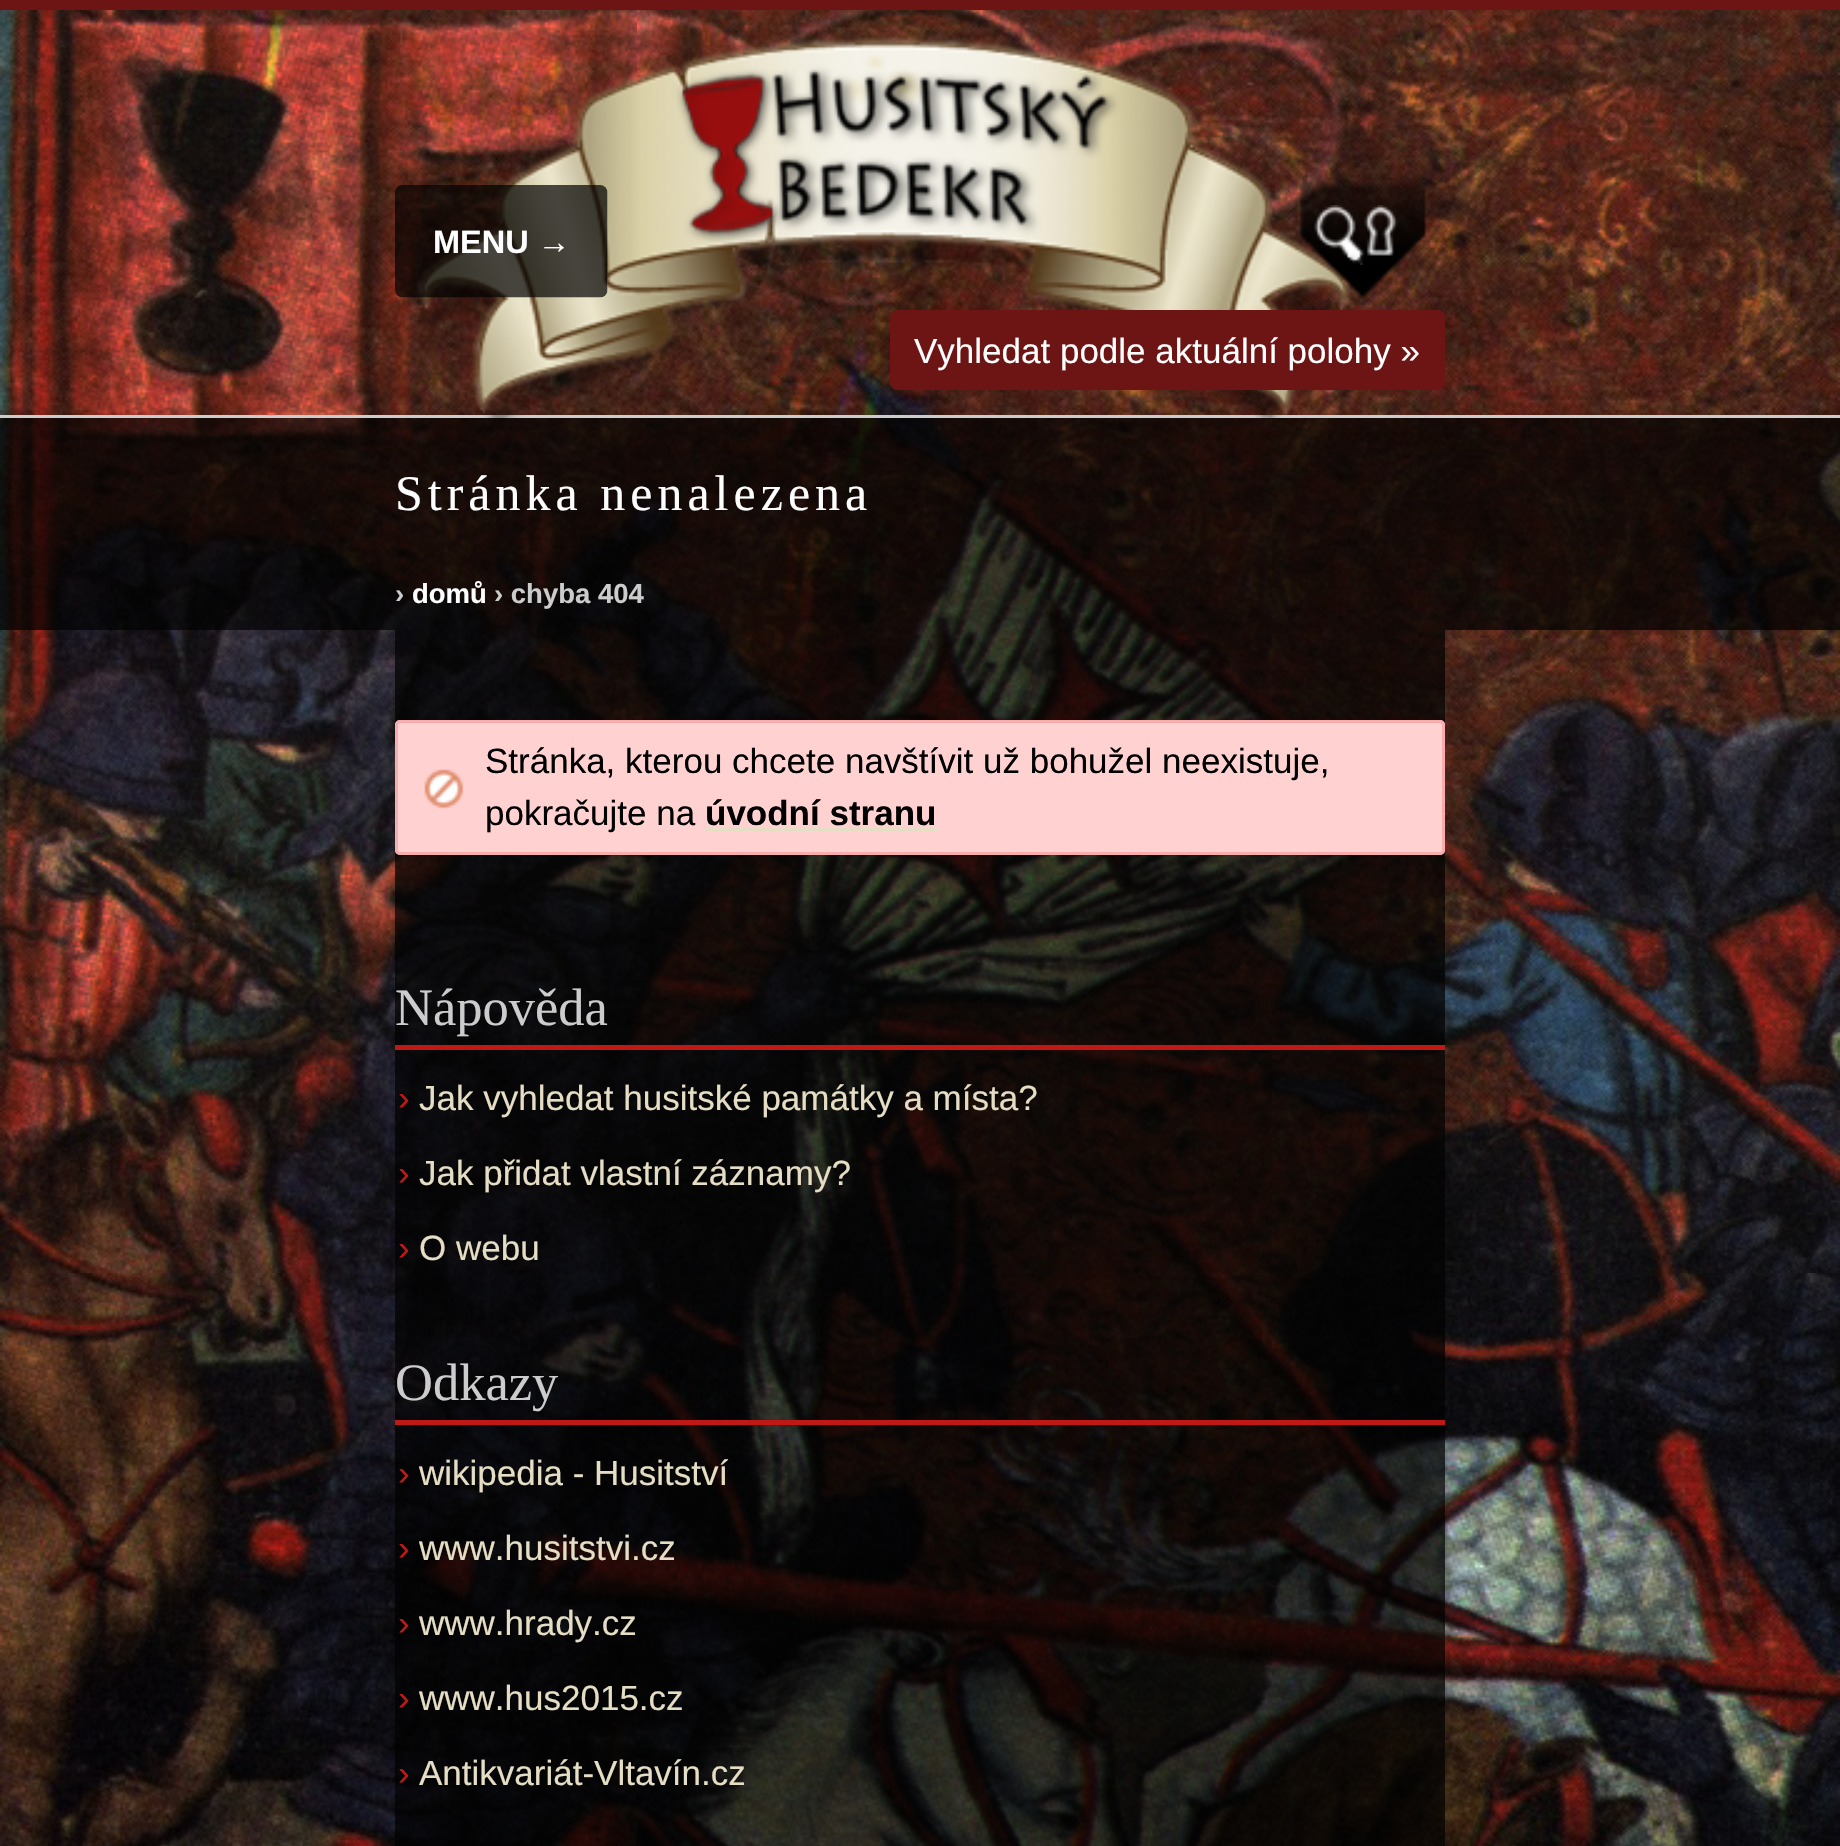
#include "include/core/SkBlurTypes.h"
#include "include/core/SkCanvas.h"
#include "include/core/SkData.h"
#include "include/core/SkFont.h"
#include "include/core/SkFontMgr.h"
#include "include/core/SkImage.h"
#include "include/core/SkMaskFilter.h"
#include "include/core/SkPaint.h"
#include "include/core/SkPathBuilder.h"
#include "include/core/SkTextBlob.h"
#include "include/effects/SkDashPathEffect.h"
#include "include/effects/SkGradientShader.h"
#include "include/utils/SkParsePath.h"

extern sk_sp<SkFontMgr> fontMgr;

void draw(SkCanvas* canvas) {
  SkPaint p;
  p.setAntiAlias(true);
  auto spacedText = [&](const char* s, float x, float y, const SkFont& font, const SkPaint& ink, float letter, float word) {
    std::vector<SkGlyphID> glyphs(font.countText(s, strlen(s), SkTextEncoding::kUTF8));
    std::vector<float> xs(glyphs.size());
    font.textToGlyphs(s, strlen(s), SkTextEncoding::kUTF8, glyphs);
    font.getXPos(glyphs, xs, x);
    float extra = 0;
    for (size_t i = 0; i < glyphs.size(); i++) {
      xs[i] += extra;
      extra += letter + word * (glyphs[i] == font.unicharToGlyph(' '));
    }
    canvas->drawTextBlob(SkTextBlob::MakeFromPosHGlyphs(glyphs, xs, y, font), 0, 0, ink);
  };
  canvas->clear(SK_ColorWHITE);
  canvas->drawImageRect(SkImages::DeferredFromEncodedData(SkData::MakeFromFileName("images/1.png")), SkRect::MakeLTRB(0, 10, 1840, 1846), SkSamplingOptions());
  p.setColor(SkColorSetRGB(109, 21, 21));
  canvas->drawRect(SkRect::MakeLTRB(0, 0, 1840, 10), p);
  p.setColor(SkColorSetRGB(204, 204, 204));
  canvas->drawRect(SkRect::MakeLTRB(0, 415, 1840, 418), p);
  p.setColor(SkColorSetARGB(179, 0, 0, 0));
  canvas->drawRect(SkRect::MakeLTRB(0, 418, 1840, 630), p);
  canvas->drawImageRect(SkImages::DeferredFromEncodedData(SkData::MakeFromFileName("images/2.png")), SkRect::MakeLTRB(400, 27, 1355, 430), SkSamplingOptions());
  canvas->drawImageRect(SkImages::DeferredFromEncodedData(SkData::MakeFromFileName("images/3.png")), SkRect::MakeLTRB(395, 185, 608, 298), SkSamplingOptions());
  canvas->drawImageRect(SkImages::DeferredFromEncodedData(SkData::MakeFromFileName("images/4.png")), SkRect::MakeLTRB(1299, 174, 1426, 299), SkSamplingOptions());
  canvas->drawImageRect(SkImages::DeferredFromEncodedData(SkData::MakeFromFileName("images/5.png")), SkRect::MakeLTRB(1314, 205, 1398, 265), SkSamplingOptions());
  p.setColor(SkColorSetRGB(109, 21, 21));
  canvas->drawRoundRect(SkRect::MakeLTRB(890, 310, 1445, 390), 8, 8, p);
  p.setColor(SkColorSetARGB(179, 0, 0, 0));
  canvas->drawRect(SkRect::MakeLTRB(395, 630, 1445, 1846), p);
  p.setColor(SkColorSetRGB(255, 209, 209));
  canvas->drawRoundRect(SkRect::MakeLTRB(395, 720, 1445, 855), 5, 5, p);
  canvas->drawImageRect(SkImages::DeferredFromEncodedData(SkData::MakeFromFileName("images/6.png")), SkRect::MakeLTRB(424, 769, 464, 809), SkSamplingOptions());
  p.setStyle(SkPaint::kStroke_Style);
  p.setStrokeWidth(3);
  p.setColor(SkColorSetRGB(248, 172, 172));
  canvas->drawRoundRect(SkRect::MakeLTRB(396.5f, 721.5f, 1443.5f, 853.5f), 3.5f, 3.5f, p);
  p.setStyle(SkPaint::kFill_Style);
  p.setColor(SkColorSetRGB(229, 222, 196));
  canvas->drawRect(SkRect::MakeLTRB(705, 828, 938, 831), p);
  p.setColor(SkColorSetRGB(192, 24, 21));
  canvas->drawRect(SkRect::MakeLTRB(395, 1045, 1445, 1050), p);
  canvas->drawRect(SkRect::MakeLTRB(395, 1420, 1445, 1425), p);
  SkFont font1(fontMgr->matchFamilyStyle("Liberation Sans", SkFontStyle::Bold()), 32.5f);
  font1.setSubpixel(true);
  p.setColor(SK_ColorWHITE);
  canvas->drawString("MENU →", 433, 253, font1, p);
  SkFont font2(fontMgr->matchFamilyStyle("Liberation Sans", SkFontStyle::Normal()), 35);
  font2.setSubpixel(true);
  canvas->drawString("Vyhledat podle aktuální polohy »", 914, 363, font2, p);
  SkFont font3(fontMgr->matchFamilyStyle("Liberation Serif", SkFontStyle::Normal()), 50);
  font3.setSubpixel(true);
  spacedText("Stránka nenalezena", 395, 510, font3, p, 5, 0);
  SkFont font4(fontMgr->matchFamilyStyle("Liberation Sans", SkFontStyle::Bold()), 27.5f);
  font4.setSubpixel(true);
  p.setColor(SkColorSetRGB(204, 204, 204));
  canvas->drawString("›", 395, 603, font4, p);
  p.setColor(SK_ColorWHITE);
  canvas->drawString("domů", 412, 603, font4, p);
  p.setColor(SkColorSetRGB(204, 204, 204));
  canvas->drawString("› chyba 404", 494, 603, font4, p);
  p.setColor(SK_ColorBLACK);
  canvas->drawString("Stránka, kterou chcete navštívit už bohužel neexistuje,", 485, 773, font2, p);
  canvas->drawString("pokračujte na", 485, 825, font2, p);
  SkFont font5(fontMgr->matchFamilyStyle("Liberation Sans", SkFontStyle::Bold()), 35);
  font5.setSubpixel(true);
  canvas->drawString("úvodní stranu", 705, 825, font5, p);
  SkFont font6(fontMgr->matchFamilyStyle("Liberation Serif", SkFontStyle::Normal()), 52.5f);
  font6.setSubpixel(true);
  p.setColor(SkColorSetRGB(204, 204, 204));
  canvas->drawString("Nápověda", 395, 1025, font6, p);
  p.setColor(SkColorSetRGB(192, 24, 21));
  canvas->drawString("›", 398, 1110, font2, p);
  p.setColor(SkColorSetRGB(229, 222, 196));
  canvas->drawString("Jak vyhledat husitské památky a místa?", 419, 1110, font2, p);
  p.setColor(SkColorSetRGB(192, 24, 21));
  canvas->drawString("›", 398, 1185, font2, p);
  p.setColor(SkColorSetRGB(229, 222, 196));
  canvas->drawString("Jak přidat vlastní záznamy?", 419, 1185, font2, p);
  p.setColor(SkColorSetRGB(192, 24, 21));
  canvas->drawString("›", 398, 1260, font2, p);
  p.setColor(SkColorSetRGB(229, 222, 196));
  canvas->drawString("O webu", 419, 1260, font2, p);
  p.setColor(SkColorSetRGB(204, 204, 204));
  canvas->drawString("Odkazy", 395, 1400, font6, p);
  p.setColor(SkColorSetRGB(192, 24, 21));
  canvas->drawString("›", 398, 1485, font2, p);
  p.setColor(SkColorSetRGB(229, 222, 196));
  canvas->drawString("wikipedia - Husitství", 419, 1485, font2, p);
  p.setColor(SkColorSetRGB(192, 24, 21));
  canvas->drawString("›", 398, 1560, font2, p);
  p.setColor(SkColorSetRGB(229, 222, 196));
  canvas->drawString("www.husitstvi.cz", 419, 1560, font2, p);
  p.setColor(SkColorSetRGB(192, 24, 21));
  canvas->drawString("›", 398, 1635, font2, p);
  p.setColor(SkColorSetRGB(229, 222, 196));
  canvas->drawString("www.hrady.cz", 419, 1635, font2, p);
  p.setColor(SkColorSetRGB(192, 24, 21));
  canvas->drawString("›", 398, 1710, font2, p);
  p.setColor(SkColorSetRGB(229, 222, 196));
  canvas->drawString("www.hus2015.cz", 419, 1710, font2, p);
  p.setColor(SkColorSetRGB(192, 24, 21));
  canvas->drawString("›", 398, 1785, font2, p);
  p.setColor(SkColorSetRGB(229, 222, 196));
  canvas->drawString("Antikvariát-Vltavín.cz", 419, 1785, font2, p);
}
